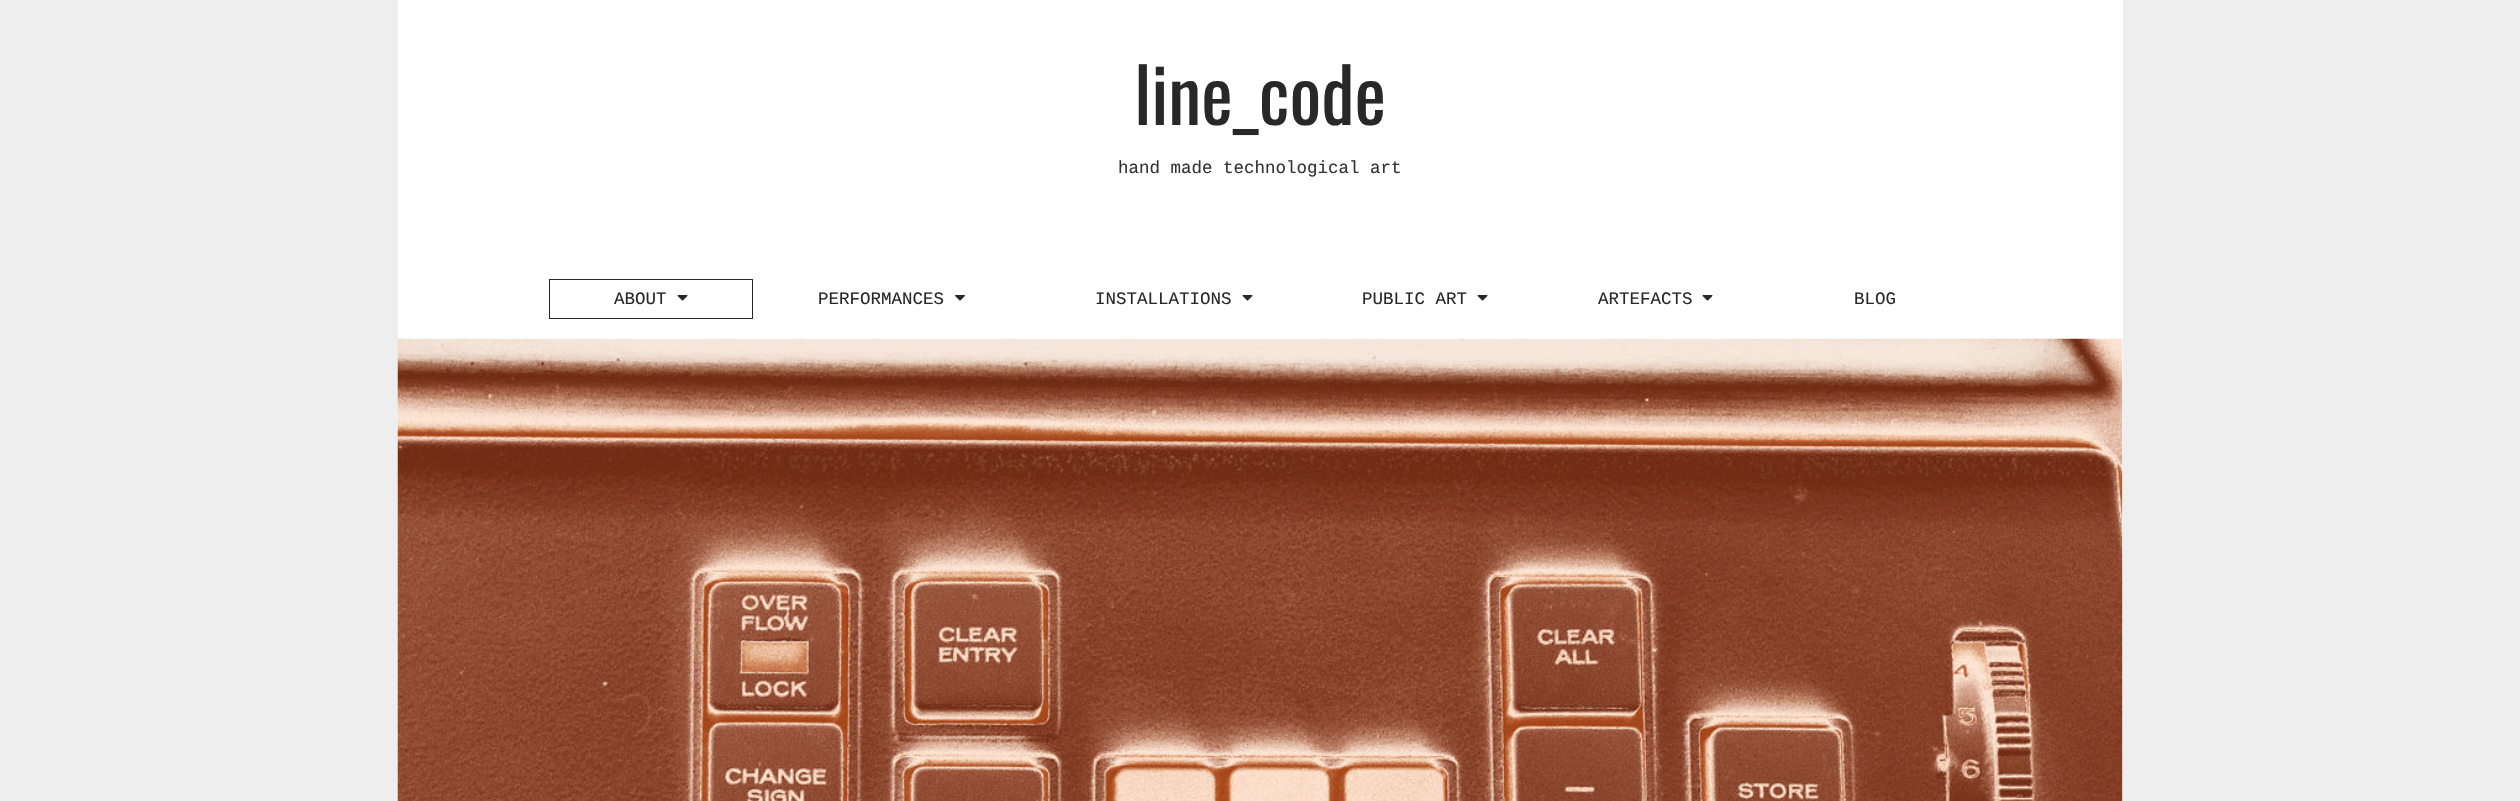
#include "include/core/SkBlurTypes.h"
#include "include/core/SkCanvas.h"
#include "include/core/SkData.h"
#include "include/core/SkFont.h"
#include "include/core/SkFontMgr.h"
#include "include/core/SkImage.h"
#include "include/core/SkMaskFilter.h"
#include "include/core/SkPaint.h"
#include "include/core/SkPathBuilder.h"
#include "include/core/SkTextBlob.h"
#include "include/effects/SkDashPathEffect.h"
#include "include/effects/SkGradientShader.h"
#include "include/utils/SkParsePath.h"

extern sk_sp<SkFontMgr> fontMgr;

void draw(SkCanvas* canvas) {
  SkPaint p;
  p.setAntiAlias(true);
  canvas->clear(SkColorSetRGB(238, 238, 238));
  p.setColor(SK_ColorWHITE);
  canvas->drawRect(SkRect::MakeLTRB(398, 0, 2123, 801), p);
  p.setStyle(SkPaint::kStroke_Style);
  p.setStrokeWidth(1);
  p.setColor(SkColorSetRGB(40, 40, 40));
  canvas->drawRect(SkRect::MakeLTRB(549.5f, 279.5f, 752.5f, 318.5f), p);
  canvas->drawImageRect(SkImages::DeferredFromEncodedData(SkData::MakeFromFileName("images/1.png")), SkRect::MakeLTRB(677, 295, 688, 301), SkSamplingOptions());
  canvas->drawImageRect(SkImages::DeferredFromEncodedData(SkData::MakeFromFileName("images/2.png")), SkRect::MakeLTRB(955, 295, 965, 301), SkSamplingOptions());
  canvas->drawImageRect(SkImages::DeferredFromEncodedData(SkData::MakeFromFileName("images/1.png")), SkRect::MakeLTRB(1242, 295, 1253, 301), SkSamplingOptions());
  canvas->drawImageRect(SkImages::DeferredFromEncodedData(SkData::MakeFromFileName("images/1.png")), SkRect::MakeLTRB(1477, 295, 1488, 301), SkSamplingOptions());
  canvas->drawImageRect(SkImages::DeferredFromEncodedData(SkData::MakeFromFileName("images/1.png")), SkRect::MakeLTRB(1702, 295, 1713, 301), SkSamplingOptions());
  canvas->drawImageRect(SkImages::DeferredFromEncodedData(SkData::MakeFromFileName("images/3.png")), SkRect::MakeLTRB(397, 338, 2123, 801), SkSamplingOptions());
  SkFont font1(fontMgr->matchFamilyStyle("Oswald", SkFontStyle::Normal()), 75);
  font1.setSubpixel(true);
  p.setStyle(SkPaint::kFill_Style);
  canvas->drawString("line_code", 1134, 125, font1, p);
  SkFont font2(fontMgr->matchFamilyStyle("Liberation Mono", SkFontStyle::Normal()), 17.5f);
  font2.setSubpixel(true);
  p.setColor(SkColorSetRGB(51, 51, 51));
  canvas->drawString("hand made technological art", 1118, 173, font2, p);
  p.setColor(SkColorSetRGB(40, 40, 40));
  canvas->drawString("ABOUT", 614, 304, font2, p);
  canvas->drawString("PERFORMANCES", 818, 304, font2, p);
  canvas->drawString("INSTALLATIONS", 1095, 304, font2, p);
  canvas->drawString("PUBLIC ART", 1362, 304, font2, p);
  canvas->drawString("ARTEFACTS", 1598, 304, font2, p);
  canvas->drawString("BLOG", 1854, 304, font2, p);
}
